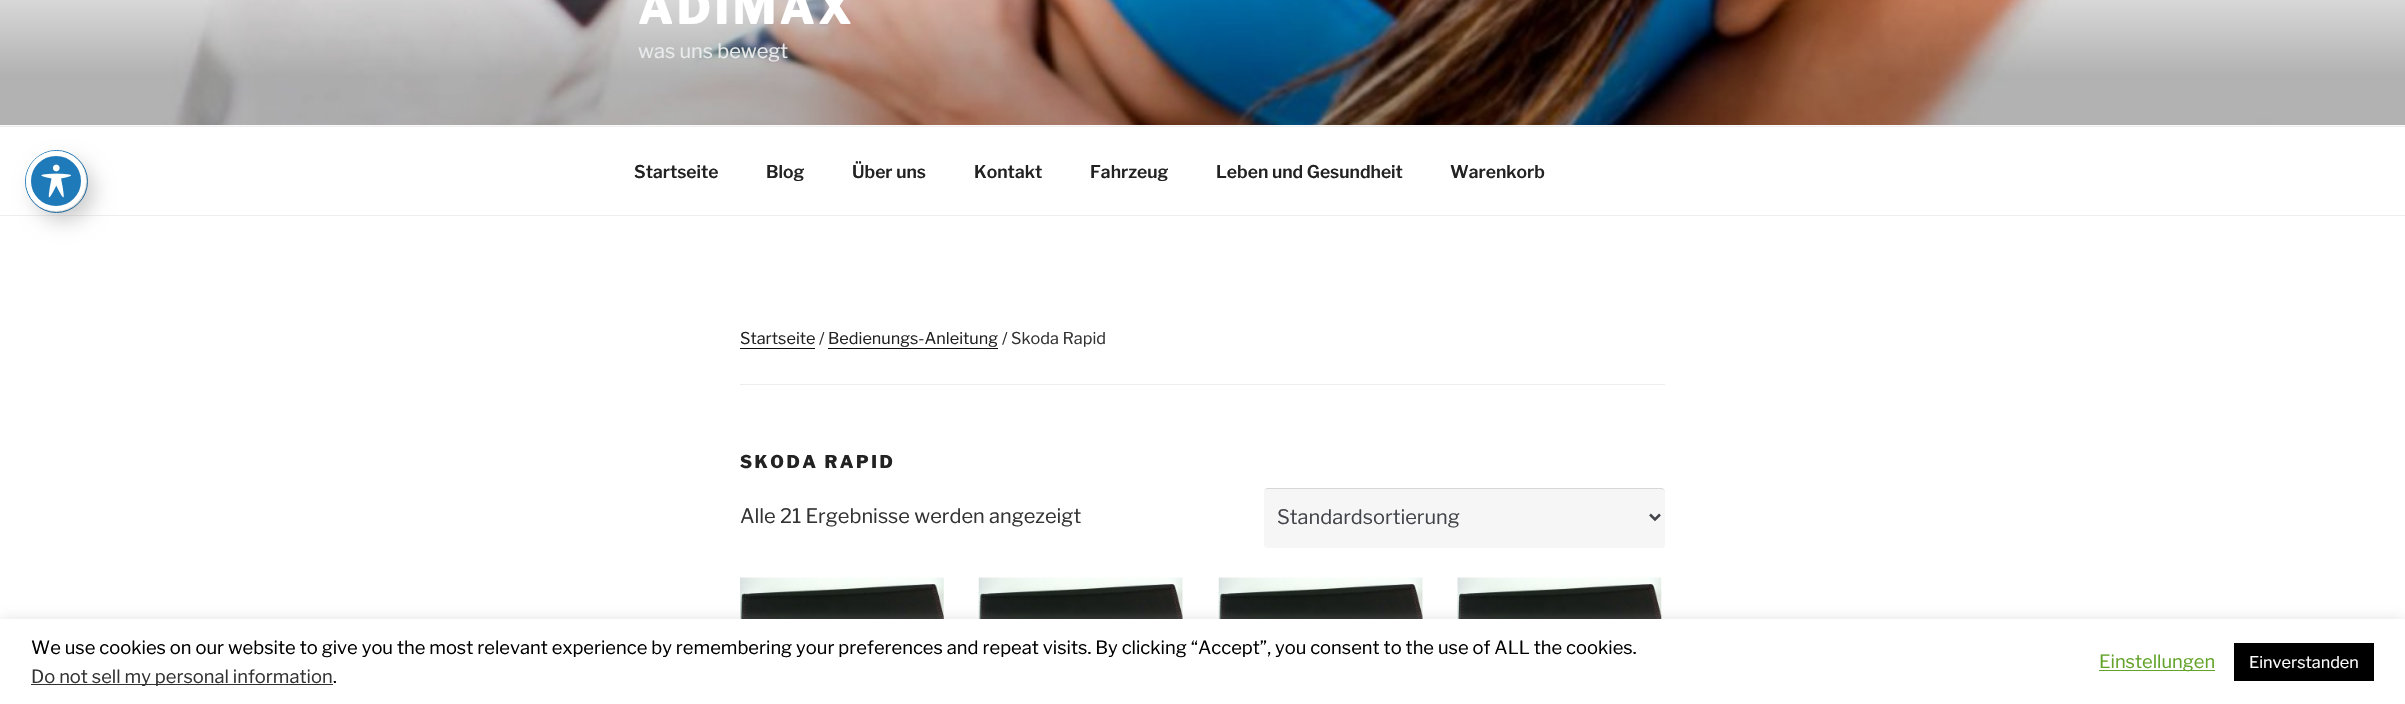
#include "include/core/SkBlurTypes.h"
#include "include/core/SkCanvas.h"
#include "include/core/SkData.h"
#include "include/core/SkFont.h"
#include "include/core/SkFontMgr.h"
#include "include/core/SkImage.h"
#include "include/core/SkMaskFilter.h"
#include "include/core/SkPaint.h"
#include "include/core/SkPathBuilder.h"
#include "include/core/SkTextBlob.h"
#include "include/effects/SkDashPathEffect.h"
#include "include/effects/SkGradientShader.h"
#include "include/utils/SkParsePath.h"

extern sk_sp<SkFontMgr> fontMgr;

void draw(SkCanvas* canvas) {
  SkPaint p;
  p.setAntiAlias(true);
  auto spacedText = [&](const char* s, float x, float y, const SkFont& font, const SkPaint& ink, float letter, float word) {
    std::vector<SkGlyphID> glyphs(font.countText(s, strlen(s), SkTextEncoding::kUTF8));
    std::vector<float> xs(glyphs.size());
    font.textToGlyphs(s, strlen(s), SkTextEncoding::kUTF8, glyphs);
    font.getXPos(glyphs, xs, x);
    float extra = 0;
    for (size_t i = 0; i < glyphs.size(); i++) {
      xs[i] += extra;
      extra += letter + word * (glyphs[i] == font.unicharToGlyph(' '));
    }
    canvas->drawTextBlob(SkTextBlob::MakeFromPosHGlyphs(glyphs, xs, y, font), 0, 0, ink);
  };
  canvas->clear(SK_ColorWHITE);
  p.setStyle(SkPaint::kStroke_Style);
  p.setStrokeWidth(1);
  p.setColor(SkColorSetRGB(30, 122, 185));
  canvas->drawCircle(56.5f, 181.5f, 31, p);
  p.setStyle(SkPaint::kFill_Style);
  p.setColor(SkColorSetRGB(238, 238, 238));
  canvas->drawRect(SkRect::MakeLTRB(0, 215, 2405, 216), p);
  p.setColor(SkColorSetARGB(51, 0, 0, 0));
  p.setMaskFilter(SkMaskFilter::MakeBlur(kNormal_SkBlurStyle, 10));
  canvas->drawRoundRect(SkRect::MakeLTRB(34, 161, 94, 221), 30, 30, p);
  p.setMaskFilter(nullptr);
  p.setColor(SkColorSetRGB(30, 122, 185));
  canvas->drawCircle(56, 181, 27.5f, p);
  p.setStyle(SkPaint::kStroke_Style);
  p.setStrokeWidth(5);
  p.setColor(SK_ColorWHITE);
  canvas->drawCircle(56, 181, 27.5f, p);
  canvas->drawImageRect(SkImages::DeferredFromEncodedData(SkData::MakeFromFileName("images/1.png")), SkRect::MakeLTRB(41, 164, 71, 198), SkSamplingOptions());
  p.setStyle(SkPaint::kFill_Style);
  p.setColor(SkColorSetRGB(250, 250, 250));
  canvas->drawRect(SkRect::MakeLTRB(0, 125, 2405, 126), p);
  canvas->drawImageRect(SkImages::DeferredFromEncodedData(SkData::MakeFromFileName("images/2.png")), SkRect::MakeLTRB(0, 0, 2405, 125), SkSamplingOptions());
  p.setColor(SkColorSetRGB(238, 238, 238));
  canvas->drawRect(SkRect::MakeLTRB(0, 126, 2405, 127), p);
  canvas->drawRect(SkRect::MakeLTRB(740, 384, 1665, 385), p);
  p.setColor(SkColorSetRGB(15, 15, 15));
  canvas->drawRect(SkRect::MakeLTRB(740, 348, 815, 349), p);
  canvas->drawPath(SkPathBuilder().moveTo(828, 348).lineTo(828, 349).lineTo(998, 349).lineTo(998, 329).lineTo(998, 348).close().detach(), p);
  p.setColor(SkColorSetRGB(246, 246, 246));
  canvas->drawRoundRect(SkRect::MakeLTRB(1264, 488, 1665, 548), 4, 4, p);
  p.setColor(SkColorSetARGB(33, 0, 0, 0));
  canvas->drawPath(SkPathBuilder().moveTo(1268, 489).lineTo(1661, 489).cubicTo(1663, 489, 1665, 490, 1665, 492).cubicTo(1665, 490, 1663, 488, 1661, 488).lineTo(1268, 488).cubicTo(1266, 488, 1265, 489, 1264, 490).cubicTo(1265, 489, 1266, 489, 1268, 489).close().detach(), p);
  p.setStyle(SkPaint::kStroke_Style);
  p.setStrokeWidth(2.5f);
  p.setColor(SkColorSetRGB(67, 69, 75));
  canvas->drawPath(SkPathBuilder().moveTo(1650, 514.5f).lineTo(1655, 519.5f).lineTo(1660, 514.5f).detach(), p);
  canvas->drawImageRect(SkImages::DeferredFromEncodedData(SkData::MakeFromFileName("images/3.png")), SkRect::MakeLTRB(740, 577, 944, 619), SkSamplingOptions());
  canvas->drawImageRect(SkImages::DeferredFromEncodedData(SkData::MakeFromFileName("images/4.png")), SkRect::MakeLTRB(978, 577, 1183, 619), SkSamplingOptions());
  canvas->drawImageRect(SkImages::DeferredFromEncodedData(SkData::MakeFromFileName("images/4.png")), SkRect::MakeLTRB(1218, 577, 1423, 619), SkSamplingOptions());
  canvas->drawImageRect(SkImages::DeferredFromEncodedData(SkData::MakeFromFileName("images/5.png")), SkRect::MakeLTRB(1457, 577, 1662, 619), SkSamplingOptions());
  p.setStyle(SkPaint::kFill_Style);
  p.setColor(SkColorSetARGB(77, 172, 171, 171));
  p.setMaskFilter(SkMaskFilter::MakeBlur(kNormal_SkBlurStyle, 6));
  canvas->drawRect(SkRect::MakeLTRB(0, 618, 2405, 704), p);
  p.setMaskFilter(nullptr);
  p.setColor(SK_ColorWHITE);
  canvas->drawRect(SkRect::MakeLTRB(0, 619, 2405, 704), p);
  p.setColor(SkColorSetRGB(51, 51, 51));
  canvas->drawRect(SkRect::MakeLTRB(31, 684, 333, 685), p);
  p.setColor(SkColorSetRGB(98, 163, 41));
  canvas->drawRect(SkRect::MakeLTRB(2099, 670, 2215, 671), p);
  p.setColor(SK_ColorBLACK);
  canvas->drawRect(SkRect::MakeLTRB(2234, 643, 2374, 681), p);
  SkFont font1(fontMgr->matchFamilyStyle("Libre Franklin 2", SkFontStyle(100, SkFontStyle::kNormal_Width, SkFontStyle::kUpright_Slant)), 45);
  font1.setSubpixel(true);
  p.setColor(SK_ColorWHITE);
  spacedText("ADIMAX", 638, 24, font1, p, 3.5f, 0);
  SkFont font2(fontMgr->matchFamilyStyle("Libre Franklin", SkFontStyle(100, SkFontStyle::kNormal_Width, SkFontStyle::kUpright_Slant)), 20);
  font2.setSubpixel(true);
  p.setColor(SkColorSetRGB(234, 235, 236));
  canvas->drawString("was uns bewegt", 638, 58, font2, p);
  SkFont font3(fontMgr->matchFamilyStyle("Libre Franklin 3", SkFontStyle(100, SkFontStyle::kNormal_Width, SkFontStyle::kUpright_Slant)), 17.5f);
  font3.setSubpixel(true);
  p.setColor(SkColorSetRGB(34, 34, 34));
  canvas->drawString("Startseite", 634, 178, font3, p);
  canvas->drawString("Blog", 766, 178, font3, p);
  canvas->drawString("Über uns", 852, 178, font3, p);
  canvas->drawString("Kontakt", 974, 178, font3, p);
  canvas->drawString("Fahrzeug", 1090, 178, font3, p);
  canvas->drawString("Leben und Gesundheit", 1216, 178, font3, p);
  canvas->drawString("Warenkorb", 1450, 178, font3, p);
  SkFont font4(fontMgr->matchFamilyStyle("Libre Franklin", SkFontStyle(100, SkFontStyle::kNormal_Width, SkFontStyle::kUpright_Slant)), 16.25f);
  font4.setSubpixel(true);
  canvas->drawString("Startseite", 740, 344, font4, p);
  p.setColor(SkColorSetRGB(51, 51, 51));
  canvas->drawString("/", 819, 344, font4, p);
  p.setColor(SkColorSetRGB(34, 34, 34));
  canvas->drawString("Bedienungs-Anleitung", 828, 344, font4, p);
  p.setColor(SkColorSetRGB(51, 51, 51));
  canvas->drawString("/ Skoda Rapid", 1002, 344, font4, p);
  SkFont font5(fontMgr->matchFamilyStyle("Libre Franklin 2", SkFontStyle(100, SkFontStyle::kNormal_Width, SkFontStyle::kUpright_Slant)), 17.5f);
  font5.setSubpixel(true);
  p.setColor(SkColorSetRGB(34, 34, 34));
  spacedText("SKODA RAPID", 740, 468, font5, p, 2.5f, 0);
  p.setColor(SkColorSetRGB(51, 51, 51));
  canvas->drawString("Alle 21 Ergebnisse werden angezeigt", 740, 523, font2, p);
  p.setColor(SkColorSetRGB(67, 69, 75));
  canvas->drawString("Standardsortierung", 1277, 524, font2, p);
  SkFont font6(fontMgr->matchFamilyStyle("Libre Franklin", SkFontStyle(100, SkFontStyle::kNormal_Width, SkFontStyle::kUpright_Slant)), 18.33f);
  font6.setSubpixel(true);
  p.setColor(SK_ColorBLACK);
  canvas->drawString("We use cookies on our website to give you the most relevant experience by remembering your preferences and repeat visits. By clicking “Accept”, you consent to the use of ALL the cookies.", 31, 654, font6, p);
  p.setColor(SkColorSetRGB(51, 51, 51));
  canvas->drawString("Do not sell my personal information", 31, 683, font6, p);
  p.setColor(SK_ColorBLACK);
  canvas->drawString(".", 333, 683, font6, p);
  p.setColor(SkColorSetRGB(98, 163, 41));
  canvas->drawString("Einstellungen", 2099, 668, font6, p);
  p.setColor(SK_ColorWHITE);
  canvas->drawString("Einverstanden", 2249, 668, font4, p);
}
